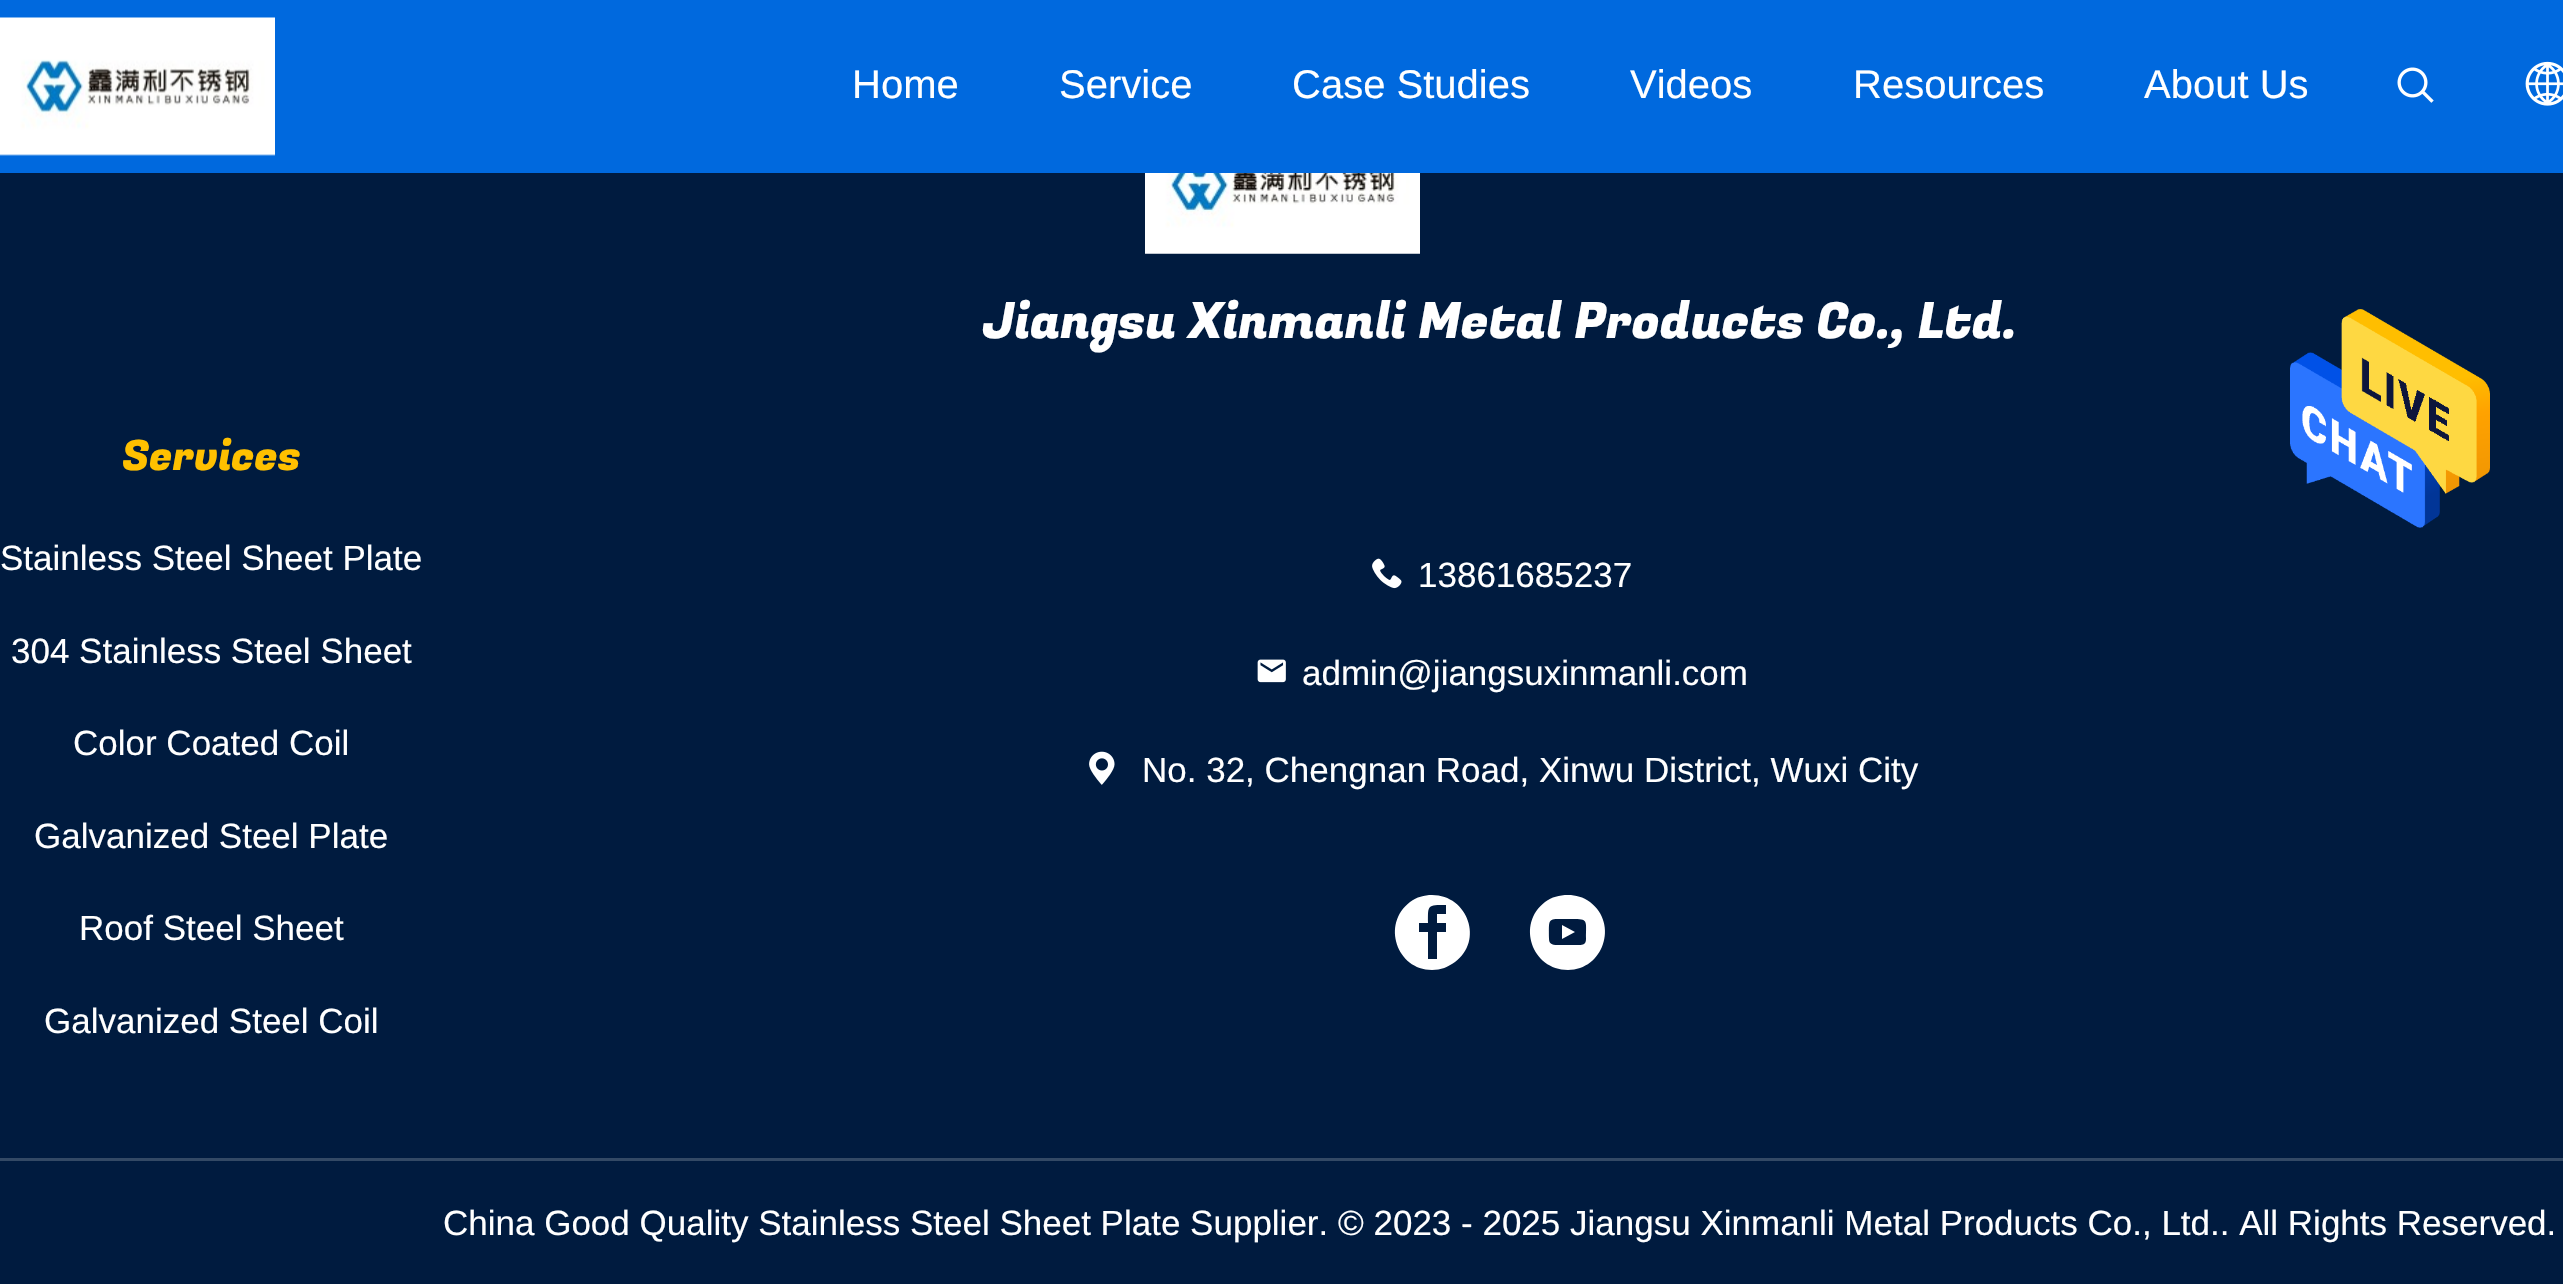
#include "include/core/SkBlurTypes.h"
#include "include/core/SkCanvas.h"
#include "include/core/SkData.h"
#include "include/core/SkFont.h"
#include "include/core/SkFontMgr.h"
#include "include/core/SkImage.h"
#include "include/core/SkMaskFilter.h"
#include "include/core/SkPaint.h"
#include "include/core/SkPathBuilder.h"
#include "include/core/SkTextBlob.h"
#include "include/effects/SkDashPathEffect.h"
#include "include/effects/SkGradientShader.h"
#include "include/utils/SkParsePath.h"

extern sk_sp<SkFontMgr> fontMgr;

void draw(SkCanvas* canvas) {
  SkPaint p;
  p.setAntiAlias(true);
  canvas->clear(SK_ColorWHITE);
  p.setColor(SkColorSetRGB(0, 27, 63));
  canvas->drawPath(SkPathBuilder().moveTo(1282, -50).cubicTo(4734, -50, 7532, 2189, 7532, 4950).lineTo(-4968, 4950).cubicTo(-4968, 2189, -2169, -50, 1282, -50).close().detach(), p);
  p.setColor(SkColorSetRGB(0, 105, 222));
  canvas->drawRect(SkRect::MakeLTRB(0, 0, 2563, 173), p);
  canvas->drawImageRect(SkImages::DeferredFromEncodedData(SkData::MakeFromFileName("images/1.png")), SkRect::MakeLTRB(0, 17, 275, 156), SkSamplingOptions());
  canvas->drawImageRect(SkImages::DeferredFromEncodedData(SkData::MakeFromFileName("images/2.png")), SkRect::MakeLTRB(2397, 67, 2434, 103), SkSamplingOptions());
  canvas->drawImageRect(SkImages::DeferredFromEncodedData(SkData::MakeFromFileName("images/3.png")), SkRect::MakeLTRB(2525, 61, 2563, 106), SkSamplingOptions());
  canvas->drawImageRect(SkImages::DeferredFromEncodedData(SkData::MakeFromFileName("images/4.png")), SkRect::MakeLTRB(1145, 173, 1420, 254), SkSamplingOptions());
  canvas->drawImageRect(SkImages::DeferredFromEncodedData(SkData::MakeFromFileName("images/5.png")), SkRect::MakeLTRB(1372, 558, 1402, 589), SkSamplingOptions());
  canvas->drawImageRect(SkImages::DeferredFromEncodedData(SkData::MakeFromFileName("images/6.png")), SkRect::MakeLTRB(1257, 659, 1286, 683), SkSamplingOptions());
  canvas->drawImageRect(SkImages::DeferredFromEncodedData(SkData::MakeFromFileName("images/7.png")), SkRect::MakeLTRB(1089, 751, 1115, 785), SkSamplingOptions());
  p.setColor(SK_ColorWHITE);
  canvas->drawPath(SkPathBuilder().moveTo(1432, 895).cubicTo(1468, 895, 1484, 941, 1455, 962).cubicTo(1448, 967, 1441, 970, 1432, 970).cubicTo(1397, 970, 1381, 924, 1410, 902).cubicTo(1417, 897, 1424, 895, 1432, 895).close().moveTo(1446, 905).cubicTo(1427, 905, 1428, 905, 1428, 923).lineTo(1419, 923).lineTo(1419, 932).lineTo(1428, 932).lineTo(1428, 959).lineTo(1437, 959).lineTo(1437, 932).lineTo(1446, 932).lineTo(1446, 923).lineTo(1437, 923).lineTo(1437, 914).lineTo(1446, 914).close().detach(), p);
  canvas->drawPath(SkPathBuilder().moveTo(1562, 939).lineTo(1575, 932).lineTo(1562, 925).close().moveTo(1568, 895).cubicTo(1559, 895, 1552, 897, 1545, 902).cubicTo(1516, 924, 1532, 970, 1568, 970).cubicTo(1603, 970, 1619, 924, 1590, 902).cubicTo(1583, 897, 1576, 895, 1568, 895).close().moveTo(1586, 939).cubicTo(1586, 946, 1581, 945, 1576, 945).lineTo(1559, 945).cubicTo(1554, 945, 1549, 945, 1549, 939).cubicTo(1549, 917, 1547, 919, 1567, 919).cubicTo(1589, 919, 1586, 918, 1586, 939).close().detach(), p);
  p.setColor(SkColorSetRGB(51, 73, 101));
  canvas->drawRect(SkRect::MakeLTRB(0, 1158, 2563, 1161), p);
  canvas->drawImageRect(SkImages::DeferredFromEncodedData(SkData::MakeFromFileName("images/8.png")), SkRect::MakeLTRB(2290, 309, 2490, 528), SkSamplingOptions());
  SkFont font1(fontMgr->matchFamilyStyle("Liberation Sans", SkFontStyle::Normal()), 40);
  font1.setSubpixel(true);
  p.setColor(SK_ColorWHITE);
  canvas->drawString("Home", 852, 98, font1, p);
  canvas->drawString("Service", 1059, 98, font1, p);
  canvas->drawString("Case Studies", 1292, 98, font1, p);
  canvas->drawString("Videos", 1630, 98, font1, p);
  canvas->drawString("Resources", 1853, 98, font1, p);
  canvas->drawString("About Us", 2144, 98, font1, p);
  SkFont font2(fontMgr->matchFamilyStyle("Fugaz One", SkFontStyle::Normal()), 50);
  font2.setSubpixel(true);
  canvas->drawString("Jiangsu Xinmanli Metal Products Co., Ltd.", 983, 338, font2, p);
  SkFont font3(fontMgr->matchFamilyStyle("Fugaz One", SkFontStyle::Normal()), 42);
  font3.setSubpixel(true);
  p.setColor(SkColorSetRGB(255, 192, 0));
  canvas->drawString("Services", 122, 470, font3, p);
  SkFont font4(fontMgr->matchFamilyStyle("Liberation Sans", SkFontStyle::Normal()), 35);
  font4.setSubpixel(true);
  p.setColor(SK_ColorWHITE);
  canvas->drawString("Stainless Steel Sheet Plate", 0, 570, font4, p);
  canvas->drawString("304 Stainless Steel Sheet", 11, 663, font4, p);
  canvas->drawString("Color Coated Coil", 73, 755, font4, p);
  canvas->drawString("Galvanized Steel Plate", 34, 848, font4, p);
  canvas->drawString("Roof Steel Sheet", 79, 940, font4, p);
  canvas->drawString("Galvanized Steel Coil", 44, 1033, font4, p);
  canvas->drawString("13861685237", 1418, 587, font4, p);
  canvas->drawString("admin@jiangsuxinmanli.com", 1302, 685, font4, p);
  canvas->drawString("No. 32, Chengnan Road, Xinwu District, Wuxi City", 1142, 782, font4, p);
  canvas->drawString("China Good Quality Stainless Steel Sheet Plate Supplier. © 2023 - 2025 Jiangsu Xinmanli Metal Products Co., Ltd.. All Rights Reserved.", 443, 1235, font4, p);
}
